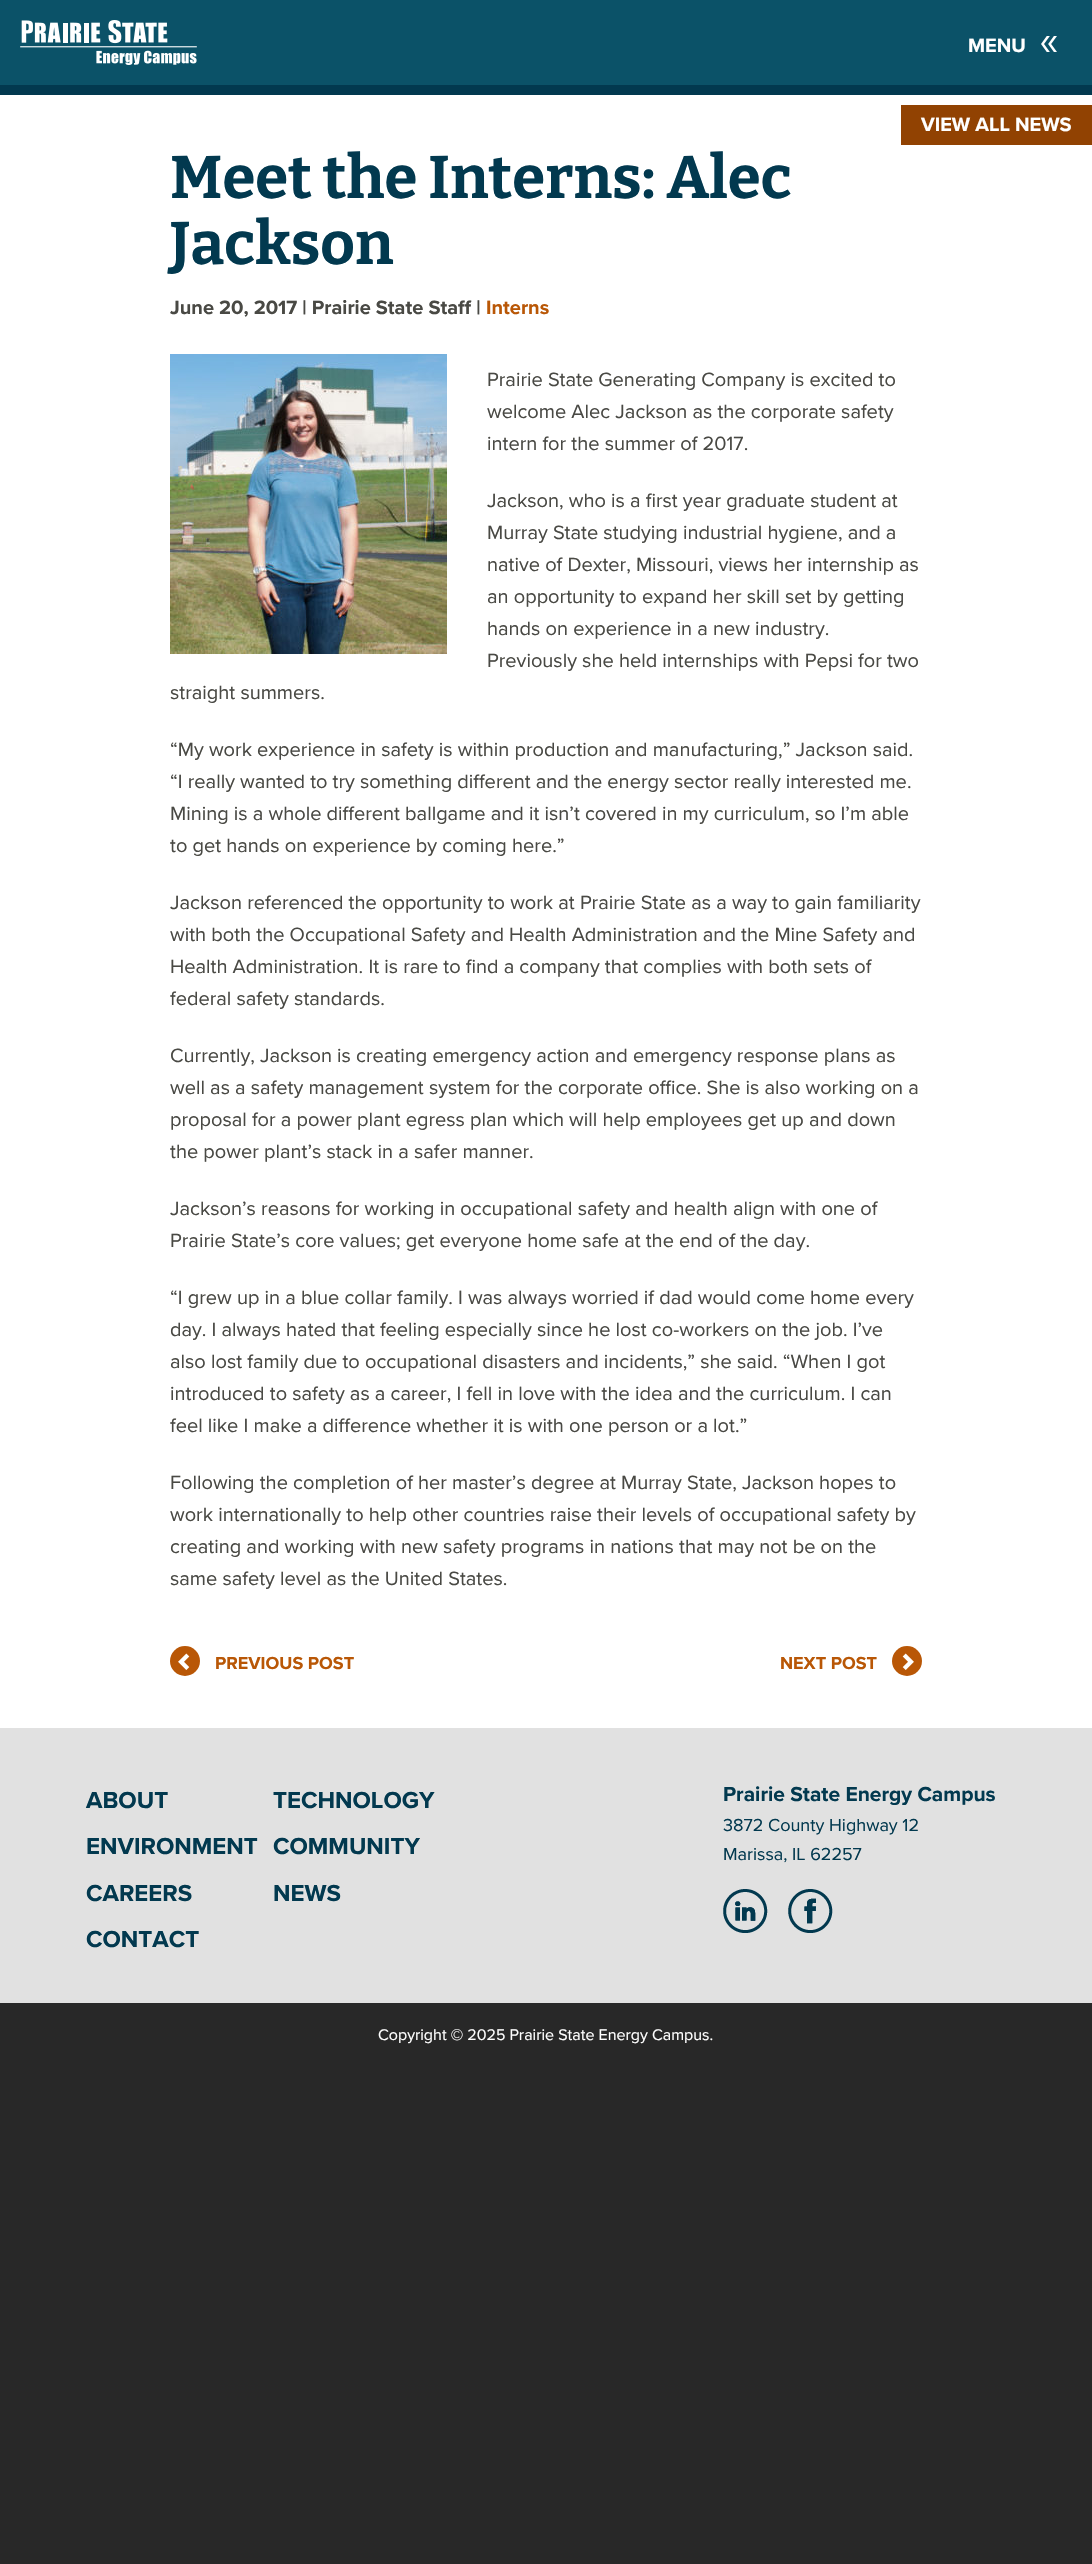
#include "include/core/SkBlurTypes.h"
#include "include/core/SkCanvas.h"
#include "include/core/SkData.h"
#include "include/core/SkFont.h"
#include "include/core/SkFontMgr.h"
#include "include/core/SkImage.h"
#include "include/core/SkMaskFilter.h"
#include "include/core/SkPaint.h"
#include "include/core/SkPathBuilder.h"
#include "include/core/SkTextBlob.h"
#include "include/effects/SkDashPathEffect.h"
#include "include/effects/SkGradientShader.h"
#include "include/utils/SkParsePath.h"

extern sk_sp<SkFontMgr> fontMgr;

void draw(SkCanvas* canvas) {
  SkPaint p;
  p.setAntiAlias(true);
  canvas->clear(SkColorSetRGB(40, 40, 40));
  p.setColor(SK_ColorWHITE);
  canvas->drawRect(SkRect::MakeLTRB(0, 95, 1092, 1728), p);
  p.setColor(SkColorSetRGB(11, 82, 104));
  canvas->drawRect(SkRect::MakeLTRB(0, 0, 1092, 85), p);
  p.setColor(SkColorSetRGB(2, 57, 79));
  canvas->drawRect(SkRect::MakeLTRB(0, 85, 1092, 95), p);
  canvas->drawImageRect(SkImages::DeferredFromEncodedData(SkData::MakeFromFileName("images/1.png")), SkRect::MakeLTRB(20, 20, 197, 65), SkSamplingOptions());
  canvas->drawImageRect(SkImages::DeferredFromEncodedData(SkData::MakeFromFileName("images/2.png")), SkRect::MakeLTRB(1041, 36, 1057, 52), SkSamplingOptions());
  p.setColor(SkColorSetRGB(145, 66, 2));
  canvas->drawRect(SkRect::MakeLTRB(901, 105, 1092, 145), p);
  canvas->drawImageRect(SkImages::DeferredFromEncodedData(SkData::MakeFromFileName("images/3.png")), SkRect::MakeLTRB(170, 354, 447, 654), SkSamplingOptions());
  p.setColor(SkColorSetRGB(185, 87, 6));
  canvas->drawCircle(185, 1661, 15, p);
  canvas->drawImageRect(SkImages::DeferredFromEncodedData(SkData::MakeFromFileName("images/4.png")), SkRect::MakeLTRB(178, 1653, 190, 1670), SkSamplingOptions());
  canvas->drawCircle(907, 1661, 15, p);
  canvas->drawImageRect(SkImages::DeferredFromEncodedData(SkData::MakeFromFileName("images/5.png")), SkRect::MakeLTRB(902, 1653, 914, 1670), SkSamplingOptions());
  p.setColor(SkColorSetRGB(225, 225, 225));
  canvas->drawRect(SkRect::MakeLTRB(0, 1728, 1092, 2003), p);
  canvas->drawImageRect(SkImages::DeferredFromEncodedData(SkData::MakeFromFileName("images/6.png")), SkRect::MakeLTRB(723, 1889, 768, 1933), SkSamplingOptions());
  canvas->drawImageRect(SkImages::DeferredFromEncodedData(SkData::MakeFromFileName("images/7.png")), SkRect::MakeLTRB(788, 1889, 833, 1933), SkSamplingOptions());
  SkFont font1(fontMgr->matchFamilyStyle("Proxima Nova", SkFontStyle::Bold()), 20);
  font1.setSubpixel(true);
  p.setColor(SK_ColorWHITE);
  canvas->drawString("MENU", 968, 52, font1, p);
  canvas->drawString("VIEW ALL NEWS", 921, 131, font1, p);
  SkFont font2(fontMgr->matchFamilyStyle("Bitter", SkFontStyle(100, SkFontStyle::kNormal_Width, SkFontStyle::kUpright_Slant)), 60);
  font2.setSubpixel(true);
  p.setColor(SkColorSetRGB(2, 57, 79));
  canvas->drawString("Meet the Interns: Alec", 170, 198, font2, p);
  canvas->drawString("Jackson", 170, 264, font2, p);
  p.setColor(SkColorSetRGB(73, 73, 68));
  canvas->drawString("June 20, 2017 | Prairie State Staff |", 170, 314, font1, p);
  p.setColor(SkColorSetRGB(185, 87, 6));
  canvas->drawString("Interns", 486, 314, font1, p);
  SkFont font3(fontMgr->matchFamilyStyle("Proxima Nova", SkFontStyle::Normal()), 20);
  font3.setSubpixel(true);
  p.setColor(SkColorSetRGB(73, 73, 68));
  canvas->drawString("Prairie State Generating Company is excited to", 487, 386, font3, p);
  canvas->drawString("welcome Alec Jackson as the corporate safety", 487, 418, font3, p);
  canvas->drawString("intern for the summer of 2017.", 487, 450, font3, p);
  canvas->drawString("Jackson, who is a first year graduate student at", 487, 507, font3, p);
  canvas->drawString("Murray State studying industrial hygiene, and a", 487, 539, font3, p);
  canvas->drawString("native of Dexter, Missouri, views her internship as", 487, 571, font3, p);
  canvas->drawString("an opportunity to expand her skill set by getting", 487, 603, font3, p);
  canvas->drawString("hands on experience in a new industry.", 487, 635, font3, p);
  canvas->drawString("Previously she held internships with Pepsi for two", 487, 667, font3, p);
  canvas->drawString("straight summers.", 170, 699, font3, p);
  canvas->drawString("“My work experience in safety is within production and manufacturing,” Jackson said.", 170, 756, font3, p);
  canvas->drawString("“I really wanted to try something different and the energy sector really interested me.", 170, 788, font3, p);
  canvas->drawString("Mining is a whole different ballgame and it isn’t covered in my curriculum, so I’m able", 170, 820, font3, p);
  canvas->drawString("to get hands on experience by coming here.”", 170, 852, font3, p);
  canvas->drawString("Jackson referenced the opportunity to work at Prairie State as a way to gain familiarity", 170, 909, font3, p);
  canvas->drawString("with both the Occupational Safety and Health Administration and the Mine Safety and", 170, 941, font3, p);
  canvas->drawString("Health Administration. It is rare to find a company that complies with both sets of", 170, 973, font3, p);
  canvas->drawString("federal safety standards.", 170, 1005, font3, p);
  canvas->drawString("Currently, Jackson is creating emergency action and emergency response plans as", 170, 1062, font3, p);
  canvas->drawString("well as a safety management system for the corporate office. She is also working on a", 170, 1094, font3, p);
  canvas->drawString("proposal for a power plant egress plan which will help employees get up and down", 170, 1126, font3, p);
  canvas->drawString("the power plant’s stack in a safer manner.", 170, 1158, font3, p);
  canvas->drawString("Jackson’s reasons for working in occupational safety and health align with one of", 170, 1215, font3, p);
  canvas->drawString("Prairie State’s core values; get everyone home safe at the end of the day.", 170, 1247, font3, p);
  canvas->drawString("“I grew up in a blue collar family. I was always worried if dad would come home every", 170, 1304, font3, p);
  canvas->drawString("day. I always hated that feeling especially since he lost co-workers on the job. I’ve", 170, 1336, font3, p);
  canvas->drawString("also lost family due to occupational disasters and incidents,” she said. “When I got", 170, 1368, font3, p);
  canvas->drawString("introduced to safety as a career, I fell in love with the idea and the curriculum. I can", 170, 1400, font3, p);
  canvas->drawString("feel like I make a difference whether it is with one person or a lot.”", 170, 1432, font3, p);
  canvas->drawString("Following the completion of her master’s degree at Murray State, Jackson hopes to", 170, 1489, font3, p);
  canvas->drawString("work internationally to help other countries raise their levels of occupational safety by", 170, 1521, font3, p);
  canvas->drawString("creating and working with new safety programs in nations that may not be on the", 170, 1553, font3, p);
  canvas->drawString("same safety level as the United States.", 170, 1585, font3, p);
  SkFont font4(fontMgr->matchFamilyStyle("Proxima Nova", SkFontStyle::Bold()), 18);
  font4.setSubpixel(true);
  p.setColor(SkColorSetRGB(185, 87, 6));
  canvas->drawString("PREVIOUS POST", 215, 1669, font4, p);
  canvas->drawString("NEXT POST", 780, 1669, font4, p);
  SkFont font5(fontMgr->matchFamilyStyle("Proxima Nova", SkFontStyle::Bold()), 24);
  font5.setSubpixel(true);
  p.setColor(SkColorSetRGB(2, 57, 79));
  canvas->drawString("ABOUT", 86, 1808, font5, p);
  canvas->drawString("TECHNOLOGY", 273, 1808, font5, p);
  canvas->drawString("ENVIRONMENT", 86, 1854, font5, p);
  canvas->drawString("COMMUNITY", 273, 1854, font5, p);
  canvas->drawString("CAREERS", 86, 1901, font5, p);
  canvas->drawString("NEWS", 273, 1901, font5, p);
  canvas->drawString("CONTACT", 86, 1947, font5, p);
  SkFont font6(fontMgr->matchFamilyStyle("Proxima Nova", SkFontStyle::Bold()), 21);
  font6.setSubpixel(true);
  canvas->drawString("Prairie State Energy Campus", 723, 1801, font6, p);
  SkFont font7(fontMgr->matchFamilyStyle("Proxima Nova", SkFontStyle::Normal()), 18);
  font7.setSubpixel(true);
  canvas->drawString("3872 County Highway 12", 723, 1831, font7, p);
  canvas->drawString("Marissa, IL 62257", 723, 1860, font7, p);
  SkFont font8(fontMgr->matchFamilyStyle("Proxima Nova", SkFontStyle::Normal()), 16);
  font8.setSubpixel(true);
  p.setColor(SK_ColorWHITE);
  canvas->drawString("Copyright © 2025 Prairie State Energy Campus.", 378, 2040, font8, p);
}
